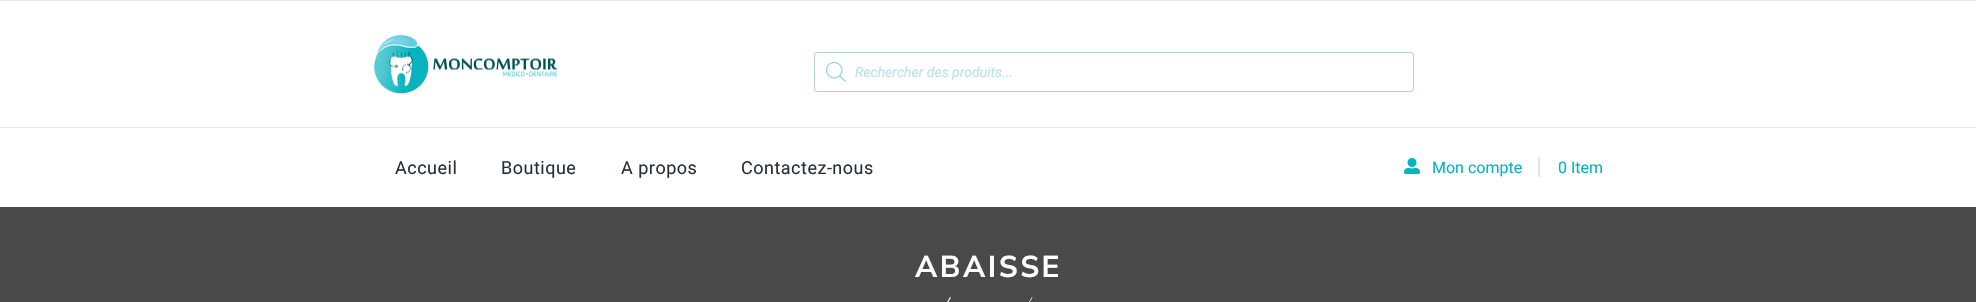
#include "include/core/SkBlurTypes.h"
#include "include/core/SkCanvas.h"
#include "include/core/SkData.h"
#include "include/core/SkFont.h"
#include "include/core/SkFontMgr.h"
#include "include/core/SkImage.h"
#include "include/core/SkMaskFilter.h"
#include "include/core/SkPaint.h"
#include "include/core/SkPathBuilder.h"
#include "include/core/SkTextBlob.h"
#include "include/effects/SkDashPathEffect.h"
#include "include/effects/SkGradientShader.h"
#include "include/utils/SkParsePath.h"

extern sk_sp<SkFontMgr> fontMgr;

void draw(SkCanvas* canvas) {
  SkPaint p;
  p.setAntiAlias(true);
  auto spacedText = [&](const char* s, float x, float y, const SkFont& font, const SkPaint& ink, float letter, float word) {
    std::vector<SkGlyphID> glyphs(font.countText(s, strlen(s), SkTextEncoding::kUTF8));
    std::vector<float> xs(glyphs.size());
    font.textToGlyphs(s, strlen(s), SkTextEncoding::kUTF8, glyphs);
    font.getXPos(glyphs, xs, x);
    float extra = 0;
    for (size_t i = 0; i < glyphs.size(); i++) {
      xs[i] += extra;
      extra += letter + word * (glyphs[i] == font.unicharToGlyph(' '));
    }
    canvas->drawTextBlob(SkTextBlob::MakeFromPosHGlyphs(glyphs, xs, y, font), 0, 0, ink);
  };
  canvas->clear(SK_ColorWHITE);
  p.setColor(SkColorSetRGB(228, 228, 228));
  canvas->drawRect(SkRect::MakeLTRB(0, 0, 1976, 1), p);
  canvas->drawRect(SkRect::MakeLTRB(0, 127, 1976, 128), p);
  canvas->drawImageRect(SkImages::DeferredFromEncodedData(SkData::MakeFromFileName("images/1.png")), SkRect::MakeLTRB(374, 35, 557, 94), SkSamplingOptions());
  p.setStyle(SkPaint::kStroke_Style);
  p.setStrokeWidth(1);
  p.setColor(SkColorSetRGB(179, 205, 214));
  canvas->drawRoundRect(SkRect::MakeLTRB(814.5f, 52.5f, 1413.5f, 91.5f), 2.5f, 2.5f, p);
  canvas->drawImageRect(SkImages::DeferredFromEncodedData(SkData::MakeFromFileName("images/2.png")), SkRect::MakeLTRB(826, 62, 846, 82), SkSamplingOptions());
  canvas->drawImageRect(SkImages::DeferredFromEncodedData(SkData::MakeFromFileName("images/3.png")), SkRect::MakeLTRB(1404, 158, 1420, 174), SkSamplingOptions());
  p.setStyle(SkPaint::kFill_Style);
  p.setColor(SkColorSetRGB(228, 228, 228));
  canvas->drawRect(SkRect::MakeLTRB(1538, 157, 1540, 177), p);
  p.setColor(SkColorSetRGB(73, 73, 73));
  canvas->drawRect(SkRect::MakeLTRB(0, 207, 1976, 302), p);
  p.setColor(SK_ColorWHITE);
  canvas->drawPath(SkPathBuilder().moveTo(950, 297).lineTo(951, 297.5f).lineTo(945, 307.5f).lineTo(944, 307).close().detach(), p);
  canvas->drawPath(SkPathBuilder().moveTo(1032, 297).lineTo(1032.5f, 297.5f).lineTo(1026.5f, 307.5f).lineTo(1026, 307).close().detach(), p);
  SkFont font1(fontMgr->matchFamilyStyle("Roboto", SkFontStyle::Italic()), 14);
  font1.setSubpixel(true);
  p.setColor(SkColorSetRGB(186, 227, 229));
  canvas->drawString("Rechercher des produits...", 855, 77, font1, p);
  SkFont font2(fontMgr->matchFamilyStyle("Roboto", SkFontStyle::Normal()), 18);
  font2.setSubpixel(true);
  p.setColor(SkColorSetRGB(38, 48, 54));
  spacedText("Accueil", 395, 174, font2, p, 0.5f, 0);
  spacedText("Boutique", 501, 174, font2, p, 0.5f, 0);
  spacedText("A propos", 621, 174, font2, p, 0.5f, 0);
  spacedText("Contactez-nous", 741, 174, font2, p, 0.5f, 0);
  SkFont font3(fontMgr->matchFamilyStyle("Roboto", SkFontStyle::Normal()), 16);
  font3.setSubpixel(true);
  p.setColor(SkColorSetRGB(7, 179, 190));
  canvas->drawString("Mon compte", 1432, 173, font3, p);
  canvas->drawString("0 Item", 1558, 173, font3, p);
  SkFont font4(fontMgr->matchFamilyStyle("Nunito Sans", SkFontStyle::Bold()), 30);
  font4.setSubpixel(true);
  p.setColor(SK_ColorWHITE);
  spacedText("ABAISSE", 915, 277, font4, p, 2.5f, 0);
}
